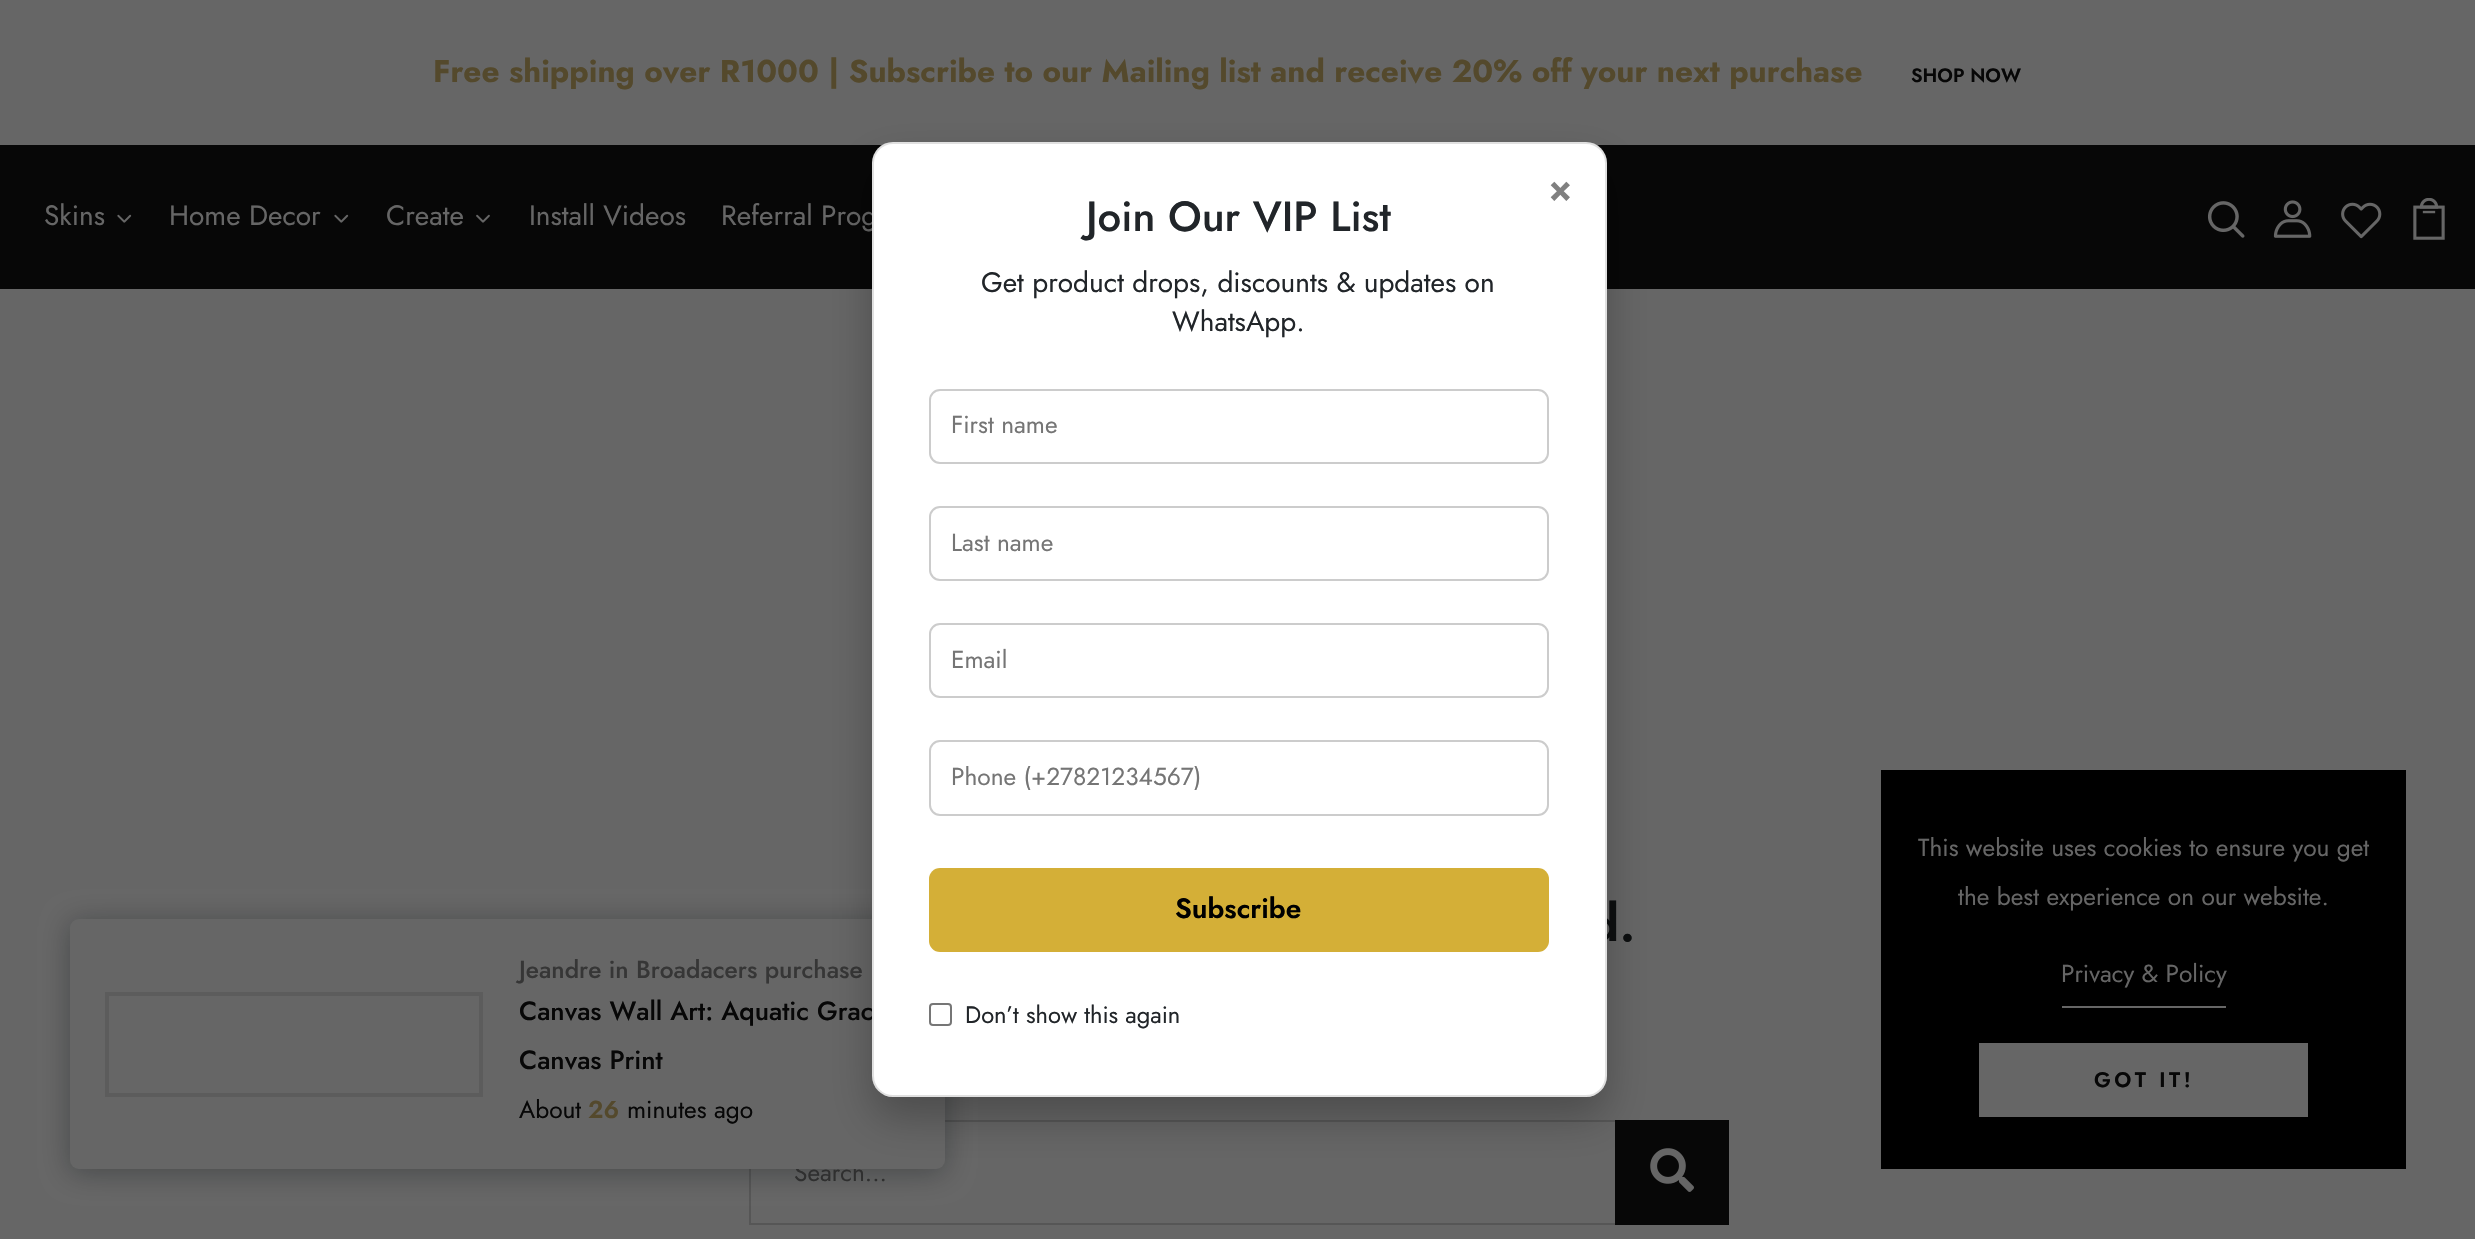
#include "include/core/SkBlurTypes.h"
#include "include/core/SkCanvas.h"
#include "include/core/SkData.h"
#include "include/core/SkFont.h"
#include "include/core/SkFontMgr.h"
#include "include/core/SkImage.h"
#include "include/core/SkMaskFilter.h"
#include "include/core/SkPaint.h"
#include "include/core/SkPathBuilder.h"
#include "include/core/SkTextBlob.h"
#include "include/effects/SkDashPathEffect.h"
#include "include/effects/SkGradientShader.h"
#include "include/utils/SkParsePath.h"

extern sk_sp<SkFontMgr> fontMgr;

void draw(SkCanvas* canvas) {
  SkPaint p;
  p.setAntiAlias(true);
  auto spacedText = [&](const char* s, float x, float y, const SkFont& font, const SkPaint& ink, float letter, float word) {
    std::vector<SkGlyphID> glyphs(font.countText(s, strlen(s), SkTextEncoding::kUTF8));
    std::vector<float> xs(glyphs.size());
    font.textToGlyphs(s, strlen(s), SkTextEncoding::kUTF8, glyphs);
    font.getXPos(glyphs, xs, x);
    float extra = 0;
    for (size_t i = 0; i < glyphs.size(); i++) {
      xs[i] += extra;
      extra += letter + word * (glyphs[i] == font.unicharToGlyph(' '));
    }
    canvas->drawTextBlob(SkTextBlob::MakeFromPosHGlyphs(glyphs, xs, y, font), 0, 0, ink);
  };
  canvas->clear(SkColorSetRGB(102, 102, 102));
  p.setColor(SkColorSetRGB(7, 7, 7));
  canvas->drawRect(SkRect::MakeLTRB(0, 145, 2475, 289), p);
  canvas->drawImageRect(SkImages::DeferredFromEncodedData(SkData::MakeFromFileName("images/1.png")), SkRect::MakeLTRB(117, 214, 132, 223), SkSamplingOptions());
  canvas->drawImageRect(SkImages::DeferredFromEncodedData(SkData::MakeFromFileName("images/1.png")), SkRect::MakeLTRB(334, 214, 349, 223), SkSamplingOptions());
  canvas->drawImageRect(SkImages::DeferredFromEncodedData(SkData::MakeFromFileName("images/2.png")), SkRect::MakeLTRB(476, 214, 490, 223), SkSamplingOptions());
  canvas->drawImageRect(SkImages::DeferredFromEncodedData(SkData::MakeFromFileName("images/3.png")), SkRect::MakeLTRB(2207, 201, 2245, 238), SkSamplingOptions());
  canvas->drawImageRect(SkImages::DeferredFromEncodedData(SkData::MakeFromFileName("images/4.png")), SkRect::MakeLTRB(2273, 200, 2312, 238), SkSamplingOptions());
  canvas->drawImageRect(SkImages::DeferredFromEncodedData(SkData::MakeFromFileName("images/5.png")), SkRect::MakeLTRB(2341, 202, 2382, 239), SkSamplingOptions());
  canvas->drawImageRect(SkImages::DeferredFromEncodedData(SkData::MakeFromFileName("images/6.png")), SkRect::MakeLTRB(2413, 198, 2445, 240), SkSamplingOptions());
  p.setStyle(SkPaint::kStroke_Style);
  p.setStrokeWidth(2);
  p.setColor(SkColorSetRGB(86, 86, 86));
  canvas->drawRect(SkRect::MakeLTRB(750, 1121, 1728, 1224), p);
  p.setStyle(SkPaint::kFill_Style);
  p.setColor(SkColorSetRGB(7, 7, 7));
  canvas->drawRect(SkRect::MakeLTRB(1615, 1120, 1729, 1225), p);
  canvas->drawImageRect(SkImages::DeferredFromEncodedData(SkData::MakeFromFileName("images/7.png")), SkRect::MakeLTRB(1650, 1148, 1694, 1192), SkSamplingOptions());
  p.setColor(SkColorSetARGB(82, 6, 12, 15));
  p.setMaskFilter(SkMaskFilter::MakeBlur(kNormal_SkBlurStyle, 14));
  canvas->drawRoundRect(SkRect::MakeLTRB(70, 922, 945, 1173), 9, 9, p);
  p.setMaskFilter(nullptr);
  p.setColor(SK_ColorBLACK);
  canvas->drawRect(SkRect::MakeLTRB(1881, 770, 2406, 1169), p);
  p.setColor(SkColorSetRGB(102, 102, 102));
  canvas->drawRect(SkRect::MakeLTRB(2062, 1006, 2226, 1008), p);
  canvas->drawRect(SkRect::MakeLTRB(1979, 1043, 2308, 1117), p);
  SkFont font1(fontMgr->matchFamilyStyle("Jost", SkFontStyle::Bold()), 31.5f);
  font1.setSubpixel(true);
  p.setColor(SkColorSetRGB(84, 73, 44));
  canvas->drawString("Free shipping over R1000 | Subscribe to our Mailing list and receive 20% off your next purchase", 433, 82, font1, p);
  SkFont font2(fontMgr->matchFamilyStyle("Jost", SkFontStyle(600, SkFontStyle::kNormal_Width, SkFontStyle::kUpright_Slant)), 19.25f);
  font2.setSubpixel(true);
  p.setColor(SkColorSetRGB(7, 7, 7));
  canvas->drawString("SHOP NOW", 1911, 82, font2, p);
  SkFont font3(fontMgr->matchFamilyStyle("Jost", SkFontStyle::Normal()), 28);
  font3.setSubpixel(true);
  p.setColor(SkColorSetRGB(102, 102, 102));
  canvas->drawString("Skins", 44, 225, font3, p);
  canvas->drawString("Home Decor", 169, 225, font3, p);
  canvas->drawString("Create", 386, 225, font3, p);
  canvas->drawString("Install Videos", 529, 225, font3, p);
  canvas->drawString("Referral Prog", 721, 225, font3, p);
  SkFont font4(fontMgr->matchFamilyStyle("Jost", SkFontStyle(600, SkFontStyle::kNormal_Width, SkFontStyle::kUpright_Slant)), 52);
  font4.setSubpixel(true);
  p.setColor(SkColorSetRGB(13, 15, 16));
  canvas->drawString("d.", 1588, 941, font4, p);
  SkFont font5(fontMgr->matchFamilyStyle("Jost", SkFontStyle::Normal()), 24.5f);
  font5.setSubpixel(true);
  p.setColor(SkColorSetRGB(47, 47, 47));
  canvas->drawString("Search...", 794, 1181, font5, p);
  p.setColor(SkColorSetRGB(102, 102, 102));
  canvas->drawRoundRect(SkRect::MakeLTRB(70, 919, 945, 1169), 9, 9, p);
  p.setStyle(SkPaint::kStroke_Style);
  p.setStrokeWidth(4);
  p.setColor(SkColorSetRGB(92, 92, 92));
  canvas->drawRect(SkRect::MakeLTRB(107, 994, 481, 1095), p);
  SkFont font6(fontMgr->matchFamilyStyle("Jost", SkFontStyle(500, SkFontStyle::kNormal_Width, SkFontStyle::kUpright_Slant)), 24.5f);
  font6.setSubpixel(true);
  p.setStyle(SkPaint::kFill_Style);
  p.setColor(SkColorSetRGB(54, 54, 54));
  canvas->drawString("Jeandre in Broadacers purchase", 519, 978, font6, p);
  SkFont font7(fontMgr->matchFamilyStyle("Jost", SkFontStyle(500, SkFontStyle::kNormal_Width, SkFontStyle::kUpright_Slant)), 26.25f);
  font7.setSubpixel(true);
  p.setColor(SkColorSetRGB(7, 7, 7));
  canvas->drawString("Canvas Wall Art: Aquatic Grac", 519, 1020, font7, p);
  canvas->drawString("Canvas Print", 519, 1069, font7, p);
  canvas->drawString("About", 519, 1118, font5, p);
  SkFont font8(fontMgr->matchFamilyStyle("Jost", SkFontStyle(600, SkFontStyle::kNormal_Width, SkFontStyle::kUpright_Slant)), 24.5f);
  font8.setSubpixel(true);
  p.setColor(SkColorSetRGB(84, 73, 44));
  canvas->drawString("26", 588, 1118, font8, p);
  p.setColor(SkColorSetRGB(7, 7, 7));
  canvas->drawString("minutes ago", 627, 1118, font5, p);
  p.setColor(SkColorSetARGB(64, 0, 0, 0));
  p.setMaskFilter(SkMaskFilter::MakeBlur(kNormal_SkBlurStyle, 21));
  canvas->drawRoundRect(SkRect::MakeLTRB(872, 163, 1607, 1118), 21, 21, p);
  p.setMaskFilter(nullptr);
  p.setColor(SK_ColorWHITE);
  canvas->drawRoundRect(SkRect::MakeLTRB(872, 142, 1607, 1097), 21, 21, p);
  p.setStyle(SkPaint::kStroke_Style);
  p.setStrokeWidth(2);
  p.setColor(SkColorSetARGB(31, 0, 0, 0));
  canvas->drawRoundRect(SkRect::MakeLTRB(873, 143, 1606, 1096), 20, 20, p);
  SkFont font9(fontMgr->matchFamilyStyle("Jost", SkFontStyle::Bold()), 38);
  font9.setSubpixel(true);
  p.setStyle(SkPaint::kFill_Style);
  p.setColor(SkColorSetRGB(128, 128, 128));
  canvas->drawString("×", 1549, 201, font9, p);
  SkFont font10(fontMgr->matchFamilyStyle("Jost", SkFontStyle(500, SkFontStyle::kNormal_Width, SkFontStyle::kUpright_Slant)), 42);
  font10.setSubpixel(true);
  p.setColor(SkColorSetRGB(33, 37, 41));
  canvas->drawString("Join Our VIP List", 1086, 231, font10, p);
  canvas->drawString("Get product drops, discounts & updates on", 981, 292, font3, p);
  canvas->drawString("WhatsApp.", 1172, 331, font3, p);
  p.setStyle(SkPaint::kStroke_Style);
  p.setColor(SkColorSetRGB(204, 204, 204));
  canvas->drawRoundRect(SkRect::MakeLTRB(930, 390, 1548, 463), 10, 10, p);
  p.setStyle(SkPaint::kFill_Style);
  p.setColor(SkColorSetRGB(117, 117, 117));
  canvas->drawString("First name", 951, 433, font5, p);
  p.setStyle(SkPaint::kStroke_Style);
  p.setColor(SkColorSetRGB(204, 204, 204));
  canvas->drawRoundRect(SkRect::MakeLTRB(930, 507, 1548, 580), 10, 10, p);
  p.setStyle(SkPaint::kFill_Style);
  p.setColor(SkColorSetRGB(117, 117, 117));
  canvas->drawString("Last name", 951, 551, font5, p);
  p.setStyle(SkPaint::kStroke_Style);
  p.setColor(SkColorSetRGB(204, 204, 204));
  canvas->drawRoundRect(SkRect::MakeLTRB(930, 624, 1548, 697), 10, 10, p);
  p.setStyle(SkPaint::kFill_Style);
  p.setColor(SkColorSetRGB(117, 117, 117));
  canvas->drawString("Email", 951, 668, font5, p);
  p.setStyle(SkPaint::kStroke_Style);
  p.setColor(SkColorSetRGB(204, 204, 204));
  canvas->drawRoundRect(SkRect::MakeLTRB(930, 741, 1548, 815), 10, 10, p);
  p.setStyle(SkPaint::kFill_Style);
  p.setColor(SkColorSetRGB(117, 117, 117));
  canvas->drawString("Phone (+27 82 123 4567)", 951, 785, font5, p);
  p.setColor(SkColorSetRGB(212, 175, 55));
  canvas->drawRoundRect(SkRect::MakeLTRB(929, 868, 1549, 952), 11, 11, p);
  SkFont font11(fontMgr->matchFamilyStyle("Jost", SkFontStyle(600, SkFontStyle::kNormal_Width, SkFontStyle::kUpright_Slant)), 28);
  font11.setSubpixel(true);
  p.setColor(SK_ColorBLACK);
  canvas->drawString("Subscribe", 1175, 918, font11, p);
  p.setStyle(SkPaint::kStroke_Style);
  p.setColor(SkColorSetRGB(118, 118, 118));
  canvas->drawRoundRect(SkRect::MakeLTRB(930, 1004, 951, 1025), 3, 3, p);
  SkFont font12(fontMgr->matchFamilyStyle("Jost", SkFontStyle::Normal()), 23.75f);
  font12.setSubpixel(true);
  p.setStyle(SkPaint::kFill_Style);
  p.setColor(SkColorSetRGB(33, 37, 41));
  canvas->drawString("Don’t show this again", 965, 1023, font12, p);
  p.setColor(SkColorSetRGB(102, 102, 102));
  canvas->drawString("This website uses cookies to ensure you get", 1918, 856, font5, p);
  canvas->drawString("the best experience on our website.", 1958, 905, font5, p);
  canvas->drawString("Privacy & Policy", 2061, 982, font5, p);
  SkFont font13(fontMgr->matchFamilyStyle("Jost", SkFontStyle(600, SkFontStyle::kNormal_Width, SkFontStyle::kUpright_Slant)), 21);
  font13.setSubpixel(true);
  p.setColor(SkColorSetRGB(7, 7, 7));
  spacedText("GOT IT!", 2094, 1087, font13, p, 3.5f, 0);
}
